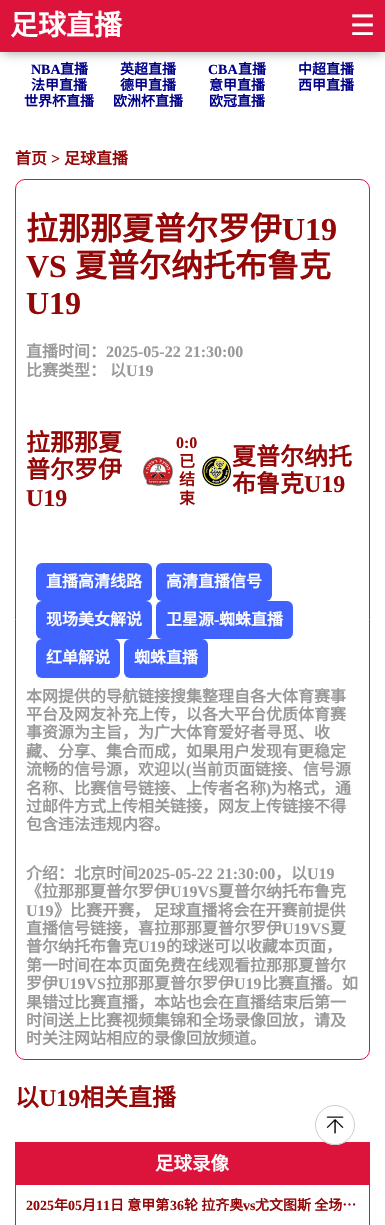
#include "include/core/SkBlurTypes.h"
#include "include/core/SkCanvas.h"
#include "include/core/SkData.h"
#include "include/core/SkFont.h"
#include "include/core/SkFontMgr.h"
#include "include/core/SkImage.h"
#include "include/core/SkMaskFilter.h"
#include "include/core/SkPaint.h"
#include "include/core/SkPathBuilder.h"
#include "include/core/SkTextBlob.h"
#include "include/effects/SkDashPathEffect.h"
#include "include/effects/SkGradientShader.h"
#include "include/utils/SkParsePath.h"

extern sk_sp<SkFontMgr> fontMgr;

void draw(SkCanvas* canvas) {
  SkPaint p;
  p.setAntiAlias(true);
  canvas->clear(SK_ColorWHITE);
  p.setColor(SkColorSetARGB(89, 0, 0, 0));
  p.setMaskFilter(SkMaskFilter::MakeBlur(kNormal_SkBlurStyle, 5));
  canvas->drawRect(SkRect::MakeLTRB(3, 7, 382, 53), p);
  p.setMaskFilter(nullptr);
  p.setColor(SkColorSetRGB(220, 20, 60));
  canvas->drawRect(SkRect::MakeLTRB(0, 0, 385, 52), p);
  p.setStyle(SkPaint::kStroke_Style);
  p.setStrokeWidth(1);
  canvas->drawRoundRect(SkRect::MakeLTRB(15.5f, 179.5f, 369.5f, 1059.5f), 9.5f, 9.5f, p);
  canvas->drawImageRect(SkImages::DeferredFromEncodedData(SkData::MakeFromFileName("images/1.png")), SkRect::MakeLTRB(143, 457, 173, 486), SkSamplingOptions());
  canvas->drawImageRect(SkImages::DeferredFromEncodedData(SkData::MakeFromFileName("images/2.png")), SkRect::MakeLTRB(201, 455, 232, 487), SkSamplingOptions());
  p.setStyle(SkPaint::kFill_Style);
  p.setColor(SkColorSetRGB(64, 98, 255));
  canvas->drawRoundRect(SkRect::MakeLTRB(36, 563, 152, 601), 6, 6, p);
  canvas->drawRoundRect(SkRect::MakeLTRB(156, 563, 272, 601), 6, 6, p);
  canvas->drawRoundRect(SkRect::MakeLTRB(36, 601, 152, 639), 6, 6, p);
  canvas->drawRoundRect(SkRect::MakeLTRB(156, 601, 293, 639), 6, 6, p);
  canvas->drawRoundRect(SkRect::MakeLTRB(36, 639, 120, 678), 6, 6, p);
  canvas->drawRoundRect(SkRect::MakeLTRB(124, 639, 208, 678), 6, 6, p);
  p.setStyle(SkPaint::kStroke_Style);
  p.setColor(SkColorSetRGB(220, 20, 60));
  canvas->drawRect(SkRect::MakeLTRB(15.5f, 1142.5f, 369.5f, 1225.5f), p);
  p.setStyle(SkPaint::kFill_Style);
  canvas->drawRect(SkRect::MakeLTRB(16, 1143, 369, 1185), p);
  p.setColor(SK_ColorWHITE);
  canvas->drawCircle(335, 1125, 20, p);
  canvas->drawImageRect(SkImages::DeferredFromEncodedData(SkData::MakeFromFileName("images/3.png")), SkRect::MakeLTRB(326, 1116, 344, 1134), SkSamplingOptions());
  p.setStyle(SkPaint::kStroke_Style);
  p.setColor(SkColorSetRGB(204, 204, 204));
  canvas->drawCircle(335, 1125, 19.5f, p);
  SkFont font1(fontMgr->matchFamilyStyle("Noto Sans CJK SC", SkFontStyle::Bold()), 28);
  font1.setSubpixel(true);
  p.setStyle(SkPaint::kFill_Style);
  p.setColor(SK_ColorWHITE);
  canvas->drawString("足球直播", 10, 35, font1, p);
  SkFont font2(fontMgr->matchFamilyStyle("DejaVu Sans", SkFontStyle::Normal()), 28);
  font2.setSubpixel(true);
  canvas->drawString("☰", 350, 35, font2, p);
  SkFont font3(fontMgr->matchFamilyStyle("Liberation Serif", SkFontStyle::Bold()), 14);
  font3.setSubpixel(true);
  p.setColor(SkColorSetRGB(0, 0, 139));
  canvas->drawString("NBA", 31, 74, font3, p);
  SkFont font4(fontMgr->matchFamilyStyle("Noto Sans CJK SC", SkFontStyle::Bold()), 14);
  font4.setSubpixel(true);
  canvas->drawString("直播", 60, 74, font4, p);
  canvas->drawString("英超直播", 120, 74, font4, p);
  canvas->drawString("CBA", 208, 74, font3, p);
  canvas->drawString("直播", 238, 74, font4, p);
  canvas->drawString("中超直播", 298, 74, font4, p);
  canvas->drawString("法甲直播", 31, 90, font4, p);
  canvas->drawString("德甲直播", 120, 90, font4, p);
  canvas->drawString("意甲直播", 209, 90, font4, p);
  canvas->drawString("西甲直播", 298, 90, font4, p);
  canvas->drawString("世界杯直播", 24, 106, font4, p);
  canvas->drawString("欧洲杯直播", 113, 106, font4, p);
  canvas->drawString("欧冠直播", 209, 106, font4, p);
  SkFont font5(fontMgr->matchFamilyStyle("Noto Sans CJK SC", SkFontStyle::Bold()), 16);
  font5.setSubpixel(true);
  p.setColor(SkColorSetRGB(148, 7, 7));
  canvas->drawString("首页", 15, 164, font5, p);
  SkFont font6(fontMgr->matchFamilyStyle("Liberation Serif", SkFontStyle::Bold()), 16);
  font6.setSubpixel(true);
  canvas->drawString(">", 51, 164, font6, p);
  canvas->drawString("足球直播", 64, 164, font5, p);
  SkFont font7(fontMgr->matchFamilyStyle("Noto Sans CJK SC", SkFontStyle::Bold()), 32);
  font7.setSubpixel(true);
  canvas->drawString("拉那那夏普尔罗伊", 26, 240, font7, p);
  SkFont font8(fontMgr->matchFamilyStyle("Liberation Serif", SkFontStyle::Bold()), 32);
  font8.setSubpixel(true);
  canvas->drawString("U19", 282, 240, font8, p);
  canvas->drawString("VS", 26, 277, font8, p);
  canvas->drawString("夏普尔纳托布鲁克", 75, 277, font7, p);
  canvas->drawString("U19", 26, 314, font8, p);
  p.setColor(SkColorSetRGB(153, 153, 153));
  canvas->drawString("直播时间：", 26, 357, font5, p);
  canvas->drawString("2025-05-22 21:30:00", 106, 357, font6, p);
  canvas->drawString("比赛类型：", 26, 376, font5, p);
  canvas->drawString("以", 110, 376, font5, p);
  canvas->drawString("U19", 126, 376, font6, p);
  SkFont font9(fontMgr->matchFamilyStyle("Noto Sans CJK SC", SkFontStyle::Bold()), 24);
  font9.setSubpixel(true);
  p.setColor(SkColorSetRGB(148, 7, 7));
  canvas->drawString("拉那那夏", 26, 451, font9, p);
  canvas->drawString("普尔罗伊", 26, 478, font9, p);
  SkFont font10(fontMgr->matchFamilyStyle("Liberation Serif", SkFontStyle::Bold()), 24);
  font10.setSubpixel(true);
  canvas->drawString("U19", 26, 506, font10, p);
  canvas->drawString("0:0", 176, 448, font6, p);
  canvas->drawString("已", 179, 467, font5, p);
  canvas->drawString("结", 179, 485, font5, p);
  canvas->drawString("束", 179, 504, font5, p);
  canvas->drawString("夏普尔纳托", 232, 465, font9, p);
  canvas->drawString("布鲁克", 232, 492, font9, p);
  canvas->drawString("U19", 304, 492, font10, p);
  p.setColor(SK_ColorWHITE);
  canvas->drawString("直播高清线路", 46, 587, font5, p);
  canvas->drawString("高清直播信号", 166, 587, font5, p);
  canvas->drawString("现场美女解说", 46, 625, font5, p);
  canvas->drawString("卫星源", 166, 625, font5, p);
  canvas->drawString("-", 214, 625, font6, p);
  canvas->drawString("蜘蛛直播", 219, 625, font5, p);
  canvas->drawString("红单解说", 46, 663, font5, p);
  canvas->drawString("蜘蛛直播", 134, 663, font5, p);
  p.setColor(SkColorSetRGB(153, 153, 153));
  canvas->drawString("本网提供的导航链接搜集整理自各大体育赛事", 26, 702, font5, p);
  canvas->drawString("平台及网友补充上传，以各大平台优质体育赛", 26, 720, font5, p);
  canvas->drawString("事资源为主旨，为广大体育爱好者寻觅、收", 26, 738, font5, p);
  canvas->drawString("藏、分享、集合而成，如果用户发现有更稳定", 26, 757, font5, p);
  canvas->drawString("流畅的信号源，欢迎以", 26, 775, font5, p);
  canvas->drawString("(", 186, 775, font6, p);
  canvas->drawString("当前页面链接、信号源", 191, 775, font5, p);
  canvas->drawString("名称、比赛信号链接、上传者名称", 26, 794, font5, p);
  canvas->drawString(")", 266, 794, font6, p);
  canvas->drawString("为格式，通", 271, 794, font5, p);
  canvas->drawString("过邮件方式上传相关链接，网友上传链接不得", 26, 812, font5, p);
  canvas->drawString("包含违法违规内容。", 26, 830, font5, p);
  canvas->drawString("介绍：北京时间", 26, 879, font5, p);
  canvas->drawString("2025-05-22 21:30:00", 138, 879, font6, p);
  canvas->drawString("，以", 275, 879, font5, p);
  canvas->drawString("U19", 307, 879, font6, p);
  canvas->drawString("《拉那那夏普尔罗伊", 26, 897, font5, p);
  canvas->drawString("U19VS", 170, 897, font6, p);
  canvas->drawString("夏普尔纳托布鲁克", 218, 897, font5, p);
  canvas->drawString("U19", 26, 916, font6, p);
  canvas->drawString("》比赛开赛， 足球直播将会在开赛前提供", 54, 916, font5, p);
  canvas->drawString("直播信号链接，喜拉那那夏普尔罗伊", 26, 934, font5, p);
  canvas->drawString("U19VS", 282, 934, font6, p);
  canvas->drawString("夏", 330, 934, font5, p);
  canvas->drawString("普尔纳托布鲁克", 26, 952, font5, p);
  canvas->drawString("U19", 138, 952, font6, p);
  canvas->drawString("的球迷可以收藏本页面，", 166, 952, font5, p);
  canvas->drawString("第一时间在本页面免费在线观看拉那那夏普尔", 26, 971, font5, p);
  canvas->drawString("罗伊", 26, 989, font5, p);
  canvas->drawString("U19VS", 58, 989, font6, p);
  canvas->drawString("拉那那夏普尔罗伊", 106, 989, font5, p);
  canvas->drawString("U19", 234, 989, font6, p);
  canvas->drawString("比赛直播。如", 262, 989, font5, p);
  canvas->drawString("果错过比赛直播，本站也会在直播结束后第一", 26, 1008, font5, p);
  canvas->drawString("时间送上比赛视频集锦和全场录像回放，请及", 26, 1026, font5, p);
  canvas->drawString("时关注网站相应的录像回放频道。", 26, 1044, font5, p);
  p.setColor(SkColorSetRGB(148, 7, 7));
  canvas->drawString("以", 15, 1106, font9, p);
  canvas->drawString("U19", 39, 1106, font10, p);
  canvas->drawString("相关直播", 80, 1106, font9, p);
  SkFont font11(fontMgr->matchFamilyStyle("Noto Sans CJK SC", SkFontStyle::Bold()), 18.5f);
  font11.setSubpixel(true);
  p.setColor(SK_ColorWHITE);
  canvas->drawString("足球录像", 155, 1170, font11, p);
  p.setColor(SkColorSetRGB(148, 7, 7));
  canvas->drawString("2025", 26, 1210, font3, p);
  canvas->drawString("年", 54, 1210, font4, p);
  canvas->drawString("05", 68, 1210, font3, p);
  canvas->drawString("月", 82, 1210, font4, p);
  canvas->drawString("11", 96, 1210, font3, p);
  canvas->drawString("日 意甲第", 110, 1210, font4, p);
  canvas->drawString("36", 170, 1210, font3, p);
  canvas->drawString("轮 拉齐奥", 184, 1210, font4, p);
  canvas->drawString("vs", 243, 1210, font3, p);
  canvas->drawString("尤文图斯 全场…", 255, 1210, font4, p);
}
